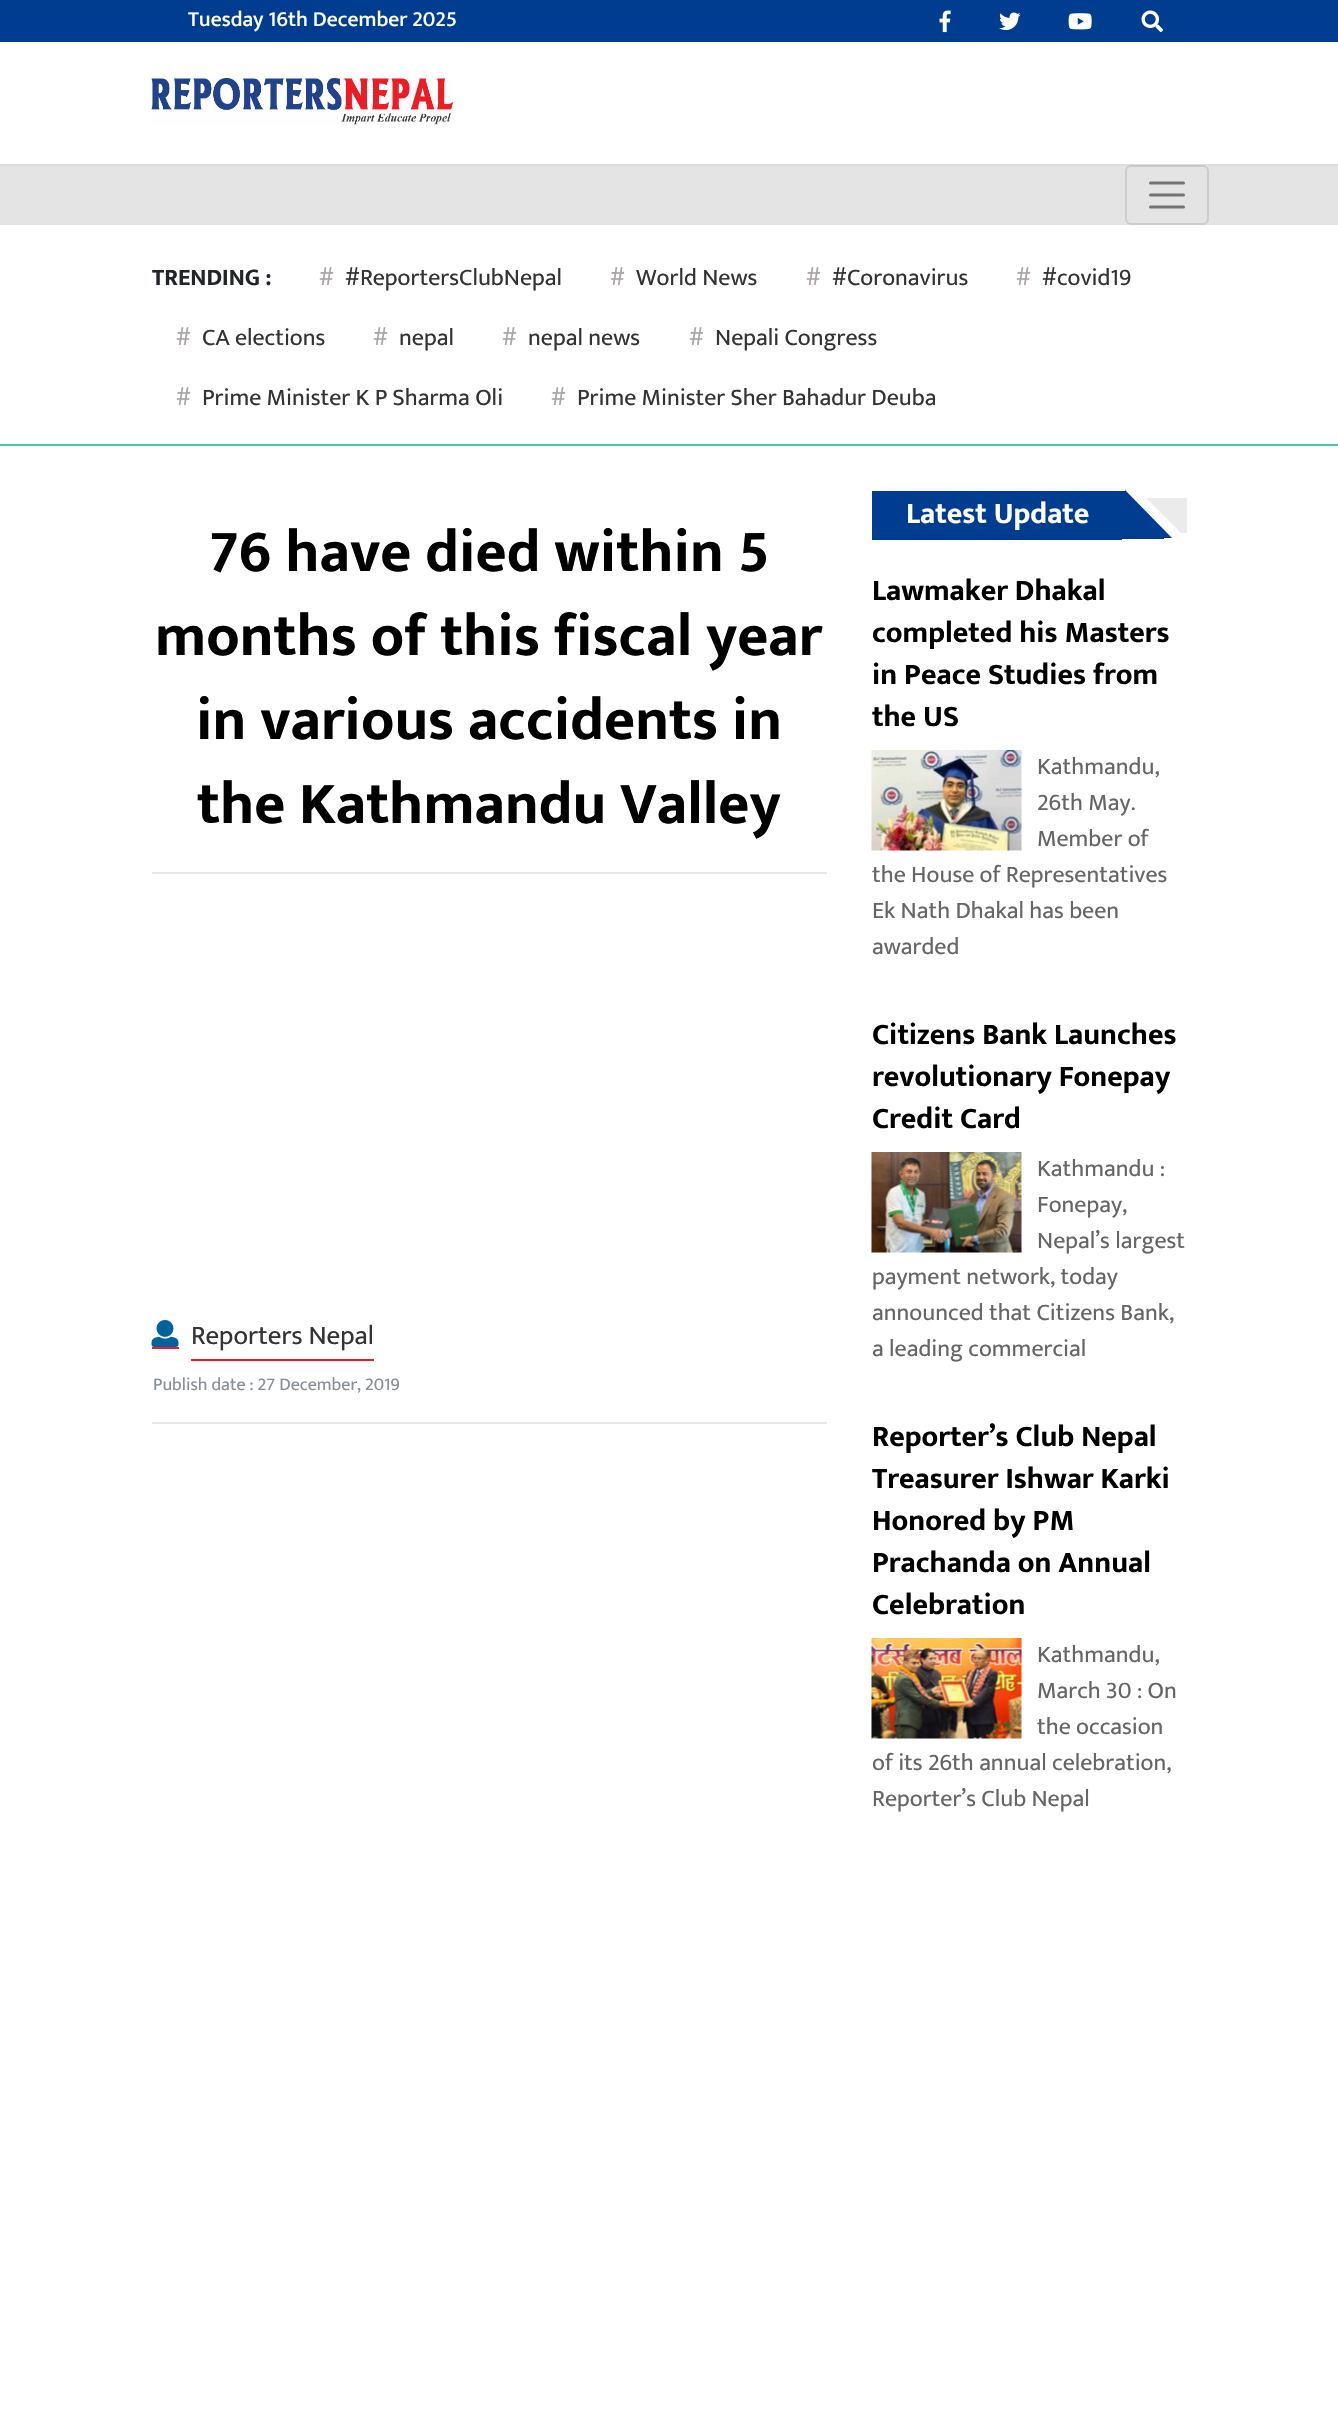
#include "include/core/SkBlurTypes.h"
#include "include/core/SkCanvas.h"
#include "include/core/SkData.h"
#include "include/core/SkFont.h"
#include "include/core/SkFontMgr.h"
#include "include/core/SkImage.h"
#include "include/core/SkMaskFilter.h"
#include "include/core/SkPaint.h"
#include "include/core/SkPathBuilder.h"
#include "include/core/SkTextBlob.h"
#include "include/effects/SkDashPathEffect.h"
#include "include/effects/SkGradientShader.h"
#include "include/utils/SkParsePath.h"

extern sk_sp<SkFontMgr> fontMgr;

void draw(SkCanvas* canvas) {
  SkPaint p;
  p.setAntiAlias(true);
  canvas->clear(SK_ColorWHITE);
  p.setColor(SkColorSetRGB(0, 60, 143));
  canvas->drawRect(SkRect::MakeLTRB(0, 0, 1338, 42), p);
  canvas->drawImageRect(SkImages::DeferredFromEncodedData(SkData::MakeFromFileName("images/1.png")), SkRect::MakeLTRB(939, 10, 951, 33), SkSamplingOptions());
  canvas->drawImageRect(SkImages::DeferredFromEncodedData(SkData::MakeFromFileName("images/2.png")), SkRect::MakeLTRB(999, 12, 1021, 31), SkSamplingOptions());
  canvas->drawImageRect(SkImages::DeferredFromEncodedData(SkData::MakeFromFileName("images/3.png")), SkRect::MakeLTRB(1068, 13, 1092, 30), SkSamplingOptions());
  canvas->drawImageRect(SkImages::DeferredFromEncodedData(SkData::MakeFromFileName("images/4.png")), SkRect::MakeLTRB(1141, 10, 1164, 33), SkSamplingOptions());
  canvas->drawImageRect(SkImages::DeferredFromEncodedData(SkData::MakeFromFileName("images/5.png")), SkRect::MakeLTRB(151, 78, 454, 125), SkSamplingOptions());
  p.setColor(SkColorSetRGB(228, 228, 228));
  canvas->drawRect(SkRect::MakeLTRB(0, 166, 1338, 225), p);
  p.setColor(SkColorSetRGB(221, 221, 221));
  canvas->drawRect(SkRect::MakeLTRB(0, 164, 1338, 166), p);
  p.setStyle(SkPaint::kStroke_Style);
  p.setStrokeWidth(2);
  p.setColor(SkColorSetARGB(26, 0, 0, 0));
  canvas->drawRoundRect(SkRect::MakeLTRB(1126, 166, 1208, 224), 5, 5, p);
  p.setStrokeWidth(3);
  p.setStrokeCap(SkPaint::kRound_Cap);
  p.setColor(SkColorSetRGB(114, 114, 114));
  canvas->drawPath(SkPathBuilder().moveTo(1150.5f, 183).lineTo(1183.5f, 183).moveTo(1150.5f, 195).lineTo(1183.5f, 195).moveTo(1150.5f, 207).lineTo(1183.5f, 207).detach(), p);
  p.setStyle(SkPaint::kFill_Style);
  p.setColor(SkColorSetRGB(67, 198, 172));
  canvas->drawRect(SkRect::MakeLTRB(0, 444, 1338, 446), p);
  p.setColor(SkColorSetRGB(230, 230, 230));
  canvas->drawRect(SkRect::MakeLTRB(152, 872, 827, 874), p);
  p.setColor(SkColorSetRGB(237, 27, 35));
  canvas->drawRect(SkRect::MakeLTRB(152, 1347, 179, 1349), p);
  canvas->drawRect(SkRect::MakeLTRB(191, 1359, 374, 1361), p);
  canvas->drawImageRect(SkImages::DeferredFromEncodedData(SkData::MakeFromFileName("images/6.png")), SkRect::MakeLTRB(151, 1320, 179, 1347), SkSamplingOptions());
  p.setColor(SkColorSetRGB(230, 230, 230));
  canvas->drawRect(SkRect::MakeLTRB(152, 1422, 827, 1424), p);
  p.setColor(SkColorSetRGB(0, 60, 143));
  canvas->drawRect(SkRect::MakeLTRB(872, 491, 1122, 540), p);
  p.setColor(SkColorSetRGB(235, 235, 235));
  canvas->drawRect(SkRect::MakeLTRB(1146, 498, 1187, 533), p);
  p.setColor(SK_ColorWHITE);
  canvas->drawPath(SkPathBuilder().moveTo(1138, 540).lineTo(1138, 490).lineTo(1188, 540).close().detach(), p);
  p.setColor(SkColorSetRGB(0, 60, 143));
  canvas->drawPath(SkPathBuilder().moveTo(1118, 491).lineTo(1118, 539).lineTo(1164, 539).lineTo(1164, 538).lineTo(1125, 538).lineTo(1125, 491).close().detach(), p);
  canvas->drawPath(SkPathBuilder().moveTo(1125, 538).lineTo(1125, 490).lineTo(1172, 538).close().detach(), p);
  canvas->drawImageRect(SkImages::DeferredFromEncodedData(SkData::MakeFromFileName("images/7.png")), SkRect::MakeLTRB(871, 750, 1022, 851), SkSamplingOptions());
  canvas->drawImageRect(SkImages::DeferredFromEncodedData(SkData::MakeFromFileName("images/8.png")), SkRect::MakeLTRB(871, 1152, 1022, 1253), SkSamplingOptions());
  canvas->drawImageRect(SkImages::DeferredFromEncodedData(SkData::MakeFromFileName("images/9.png")), SkRect::MakeLTRB(871, 1638, 1022, 1739), SkSamplingOptions());
  SkFont font1(fontMgr->matchFamilyStyle("Mukta", SkFontStyle(500, SkFontStyle::kNormal_Width, SkFontStyle::kUpright_Slant)), 21.6f);
  font1.setSubpixel(true);
  p.setColor(SK_ColorWHITE);
  canvas->drawString("Tuesday 16th December 2025", 188, 26, font1, p);
  SkFont font2(fontMgr->matchFamilyStyle("Mukta", SkFontStyle::Bold()), 24);
  font2.setSubpixel(true);
  p.setColor(SkColorSetRGB(33, 37, 41));
  canvas->drawString("TRENDING :", 152, 285, font2, p);
  SkFont font3(fontMgr->matchFamilyStyle("Mukta", SkFontStyle::Normal()), 24);
  font3.setSubpixel(true);
  p.setColor(SkColorSetRGB(171, 164, 164));
  canvas->drawString("#", 319, 285, font3, p);
  p.setColor(SkColorSetRGB(51, 51, 51));
  canvas->drawString("#ReportersClubNepal", 345, 285, font3, p);
  p.setColor(SkColorSetRGB(171, 164, 164));
  canvas->drawString("#", 610, 285, font3, p);
  p.setColor(SkColorSetRGB(51, 51, 51));
  canvas->drawString("World News", 636, 285, font3, p);
  p.setColor(SkColorSetRGB(171, 164, 164));
  canvas->drawString("#", 806, 285, font3, p);
  p.setColor(SkColorSetRGB(51, 51, 51));
  canvas->drawString("#Coronavirus", 832, 285, font3, p);
  p.setColor(SkColorSetRGB(171, 164, 164));
  canvas->drawString("#", 1016, 285, font3, p);
  p.setColor(SkColorSetRGB(51, 51, 51));
  canvas->drawString("#covid19", 1042, 285, font3, p);
  p.setColor(SkColorSetRGB(171, 164, 164));
  canvas->drawString("#", 176, 345, font3, p);
  p.setColor(SkColorSetRGB(51, 51, 51));
  canvas->drawString("CA elections", 202, 345, font3, p);
  p.setColor(SkColorSetRGB(171, 164, 164));
  canvas->drawString("#", 373, 345, font3, p);
  p.setColor(SkColorSetRGB(51, 51, 51));
  canvas->drawString("nepal", 399, 345, font3, p);
  p.setColor(SkColorSetRGB(171, 164, 164));
  canvas->drawString("#", 502, 345, font3, p);
  p.setColor(SkColorSetRGB(51, 51, 51));
  canvas->drawString("nepal news", 528, 345, font3, p);
  p.setColor(SkColorSetRGB(171, 164, 164));
  canvas->drawString("#", 689, 345, font3, p);
  p.setColor(SkColorSetRGB(51, 51, 51));
  canvas->drawString("Nepali Congress", 715, 345, font3, p);
  p.setColor(SkColorSetRGB(171, 164, 164));
  canvas->drawString("#", 176, 405, font3, p);
  p.setColor(SkColorSetRGB(51, 51, 51));
  canvas->drawString("Prime Minister K P Sharma Oli", 202, 405, font3, p);
  p.setColor(SkColorSetRGB(171, 164, 164));
  canvas->drawString("#", 551, 405, font3, p);
  p.setColor(SkColorSetRGB(51, 51, 51));
  canvas->drawString("Prime Minister Sher Bahadur Deuba", 577, 405, font3, p);
  SkFont font4(fontMgr->matchFamilyStyle("Mukta", SkFontStyle::Bold()), 60);
  font4.setSubpixel(true);
  p.setColor(SK_ColorBLACK);
  canvas->drawString("76 have died within 5", 209, 571, font4, p);
  canvas->drawString("months of this fiscal year", 155, 655, font4, p);
  canvas->drawString("in various accidents in", 196, 739, font4, p);
  canvas->drawString("the Kathmandu Valley", 197, 823, font4, p);
  SkFont font5(fontMgr->matchFamilyStyle("Mukta", SkFontStyle::Normal()), 27);
  font5.setSubpixel(true);
  p.setColor(SkColorSetRGB(51, 51, 51));
  canvas->drawString("Reporters Nepal", 191, 1344, font5, p);
  SkFont font6(fontMgr->matchFamilyStyle("Mukta", SkFontStyle::Normal()), 18);
  font6.setSubpixel(true);
  p.setColor(SkColorSetRGB(134, 142, 150));
  canvas->drawString("Publish date : 27 December, 2019", 153, 1390, font6, p);
  SkFont font7(fontMgr->matchFamilyStyle("Mukta", SkFontStyle::Bold()), 30);
  font7.setSubpixel(true);
  p.setColor(SK_ColorWHITE);
  canvas->drawString("Latest Update", 906, 523, font7, p);
  p.setColor(SK_ColorBLACK);
  canvas->drawString("Lawmaker Dhakal", 872, 600, font7, p);
  canvas->drawString("completed his Masters", 872, 642, font7, p);
  canvas->drawString("in Peace Studies from", 872, 684, font7, p);
  canvas->drawString("the US", 872, 726, font7, p);
  p.setColor(SkColorSetRGB(101, 101, 101));
  canvas->drawString("Kathmandu,", 1037, 774, font3, p);
  canvas->drawString("26th May.", 1037, 810, font3, p);
  canvas->drawString("Member of", 1037, 846, font3, p);
  canvas->drawString("the House of Representatives", 872, 882, font3, p);
  canvas->drawString("Ek Nath Dhakal has been", 872, 918, font3, p);
  canvas->drawString("awarded", 872, 954, font3, p);
  p.setColor(SK_ColorBLACK);
  canvas->drawString("Citizens Bank Launches", 872, 1044, font7, p);
  canvas->drawString("revolutionary Fonepay", 872, 1086, font7, p);
  canvas->drawString("Credit Card", 872, 1128, font7, p);
  p.setColor(SkColorSetRGB(101, 101, 101));
  canvas->drawString("Kathmandu :", 1037, 1176, font3, p);
  canvas->drawString("Fonepay,", 1037, 1212, font3, p);
  canvas->drawString("Nepal’s largest", 1037, 1248, font3, p);
  canvas->drawString("payment network, today", 872, 1284, font3, p);
  canvas->drawString("announced that Citizens Bank,", 872, 1320, font3, p);
  canvas->drawString("a leading commercial", 872, 1356, font3, p);
  p.setColor(SK_ColorBLACK);
  canvas->drawString("Reporter’s Club Nepal", 872, 1446, font7, p);
  canvas->drawString("Treasurer Ishwar Karki", 872, 1488, font7, p);
  canvas->drawString("Honored by PM", 872, 1530, font7, p);
  canvas->drawString("Prachanda on Annual", 872, 1572, font7, p);
  canvas->drawString("Celebration", 872, 1614, font7, p);
  p.setColor(SkColorSetRGB(101, 101, 101));
  canvas->drawString("Kathmandu,", 1037, 1662, font3, p);
  canvas->drawString("March 30 : On", 1037, 1698, font3, p);
  canvas->drawString("the occasion", 1037, 1734, font3, p);
  canvas->drawString("of its 26th annual celebration,", 872, 1770, font3, p);
  canvas->drawString("Reporter’s Club Nepal", 872, 1806, font3, p);
}
